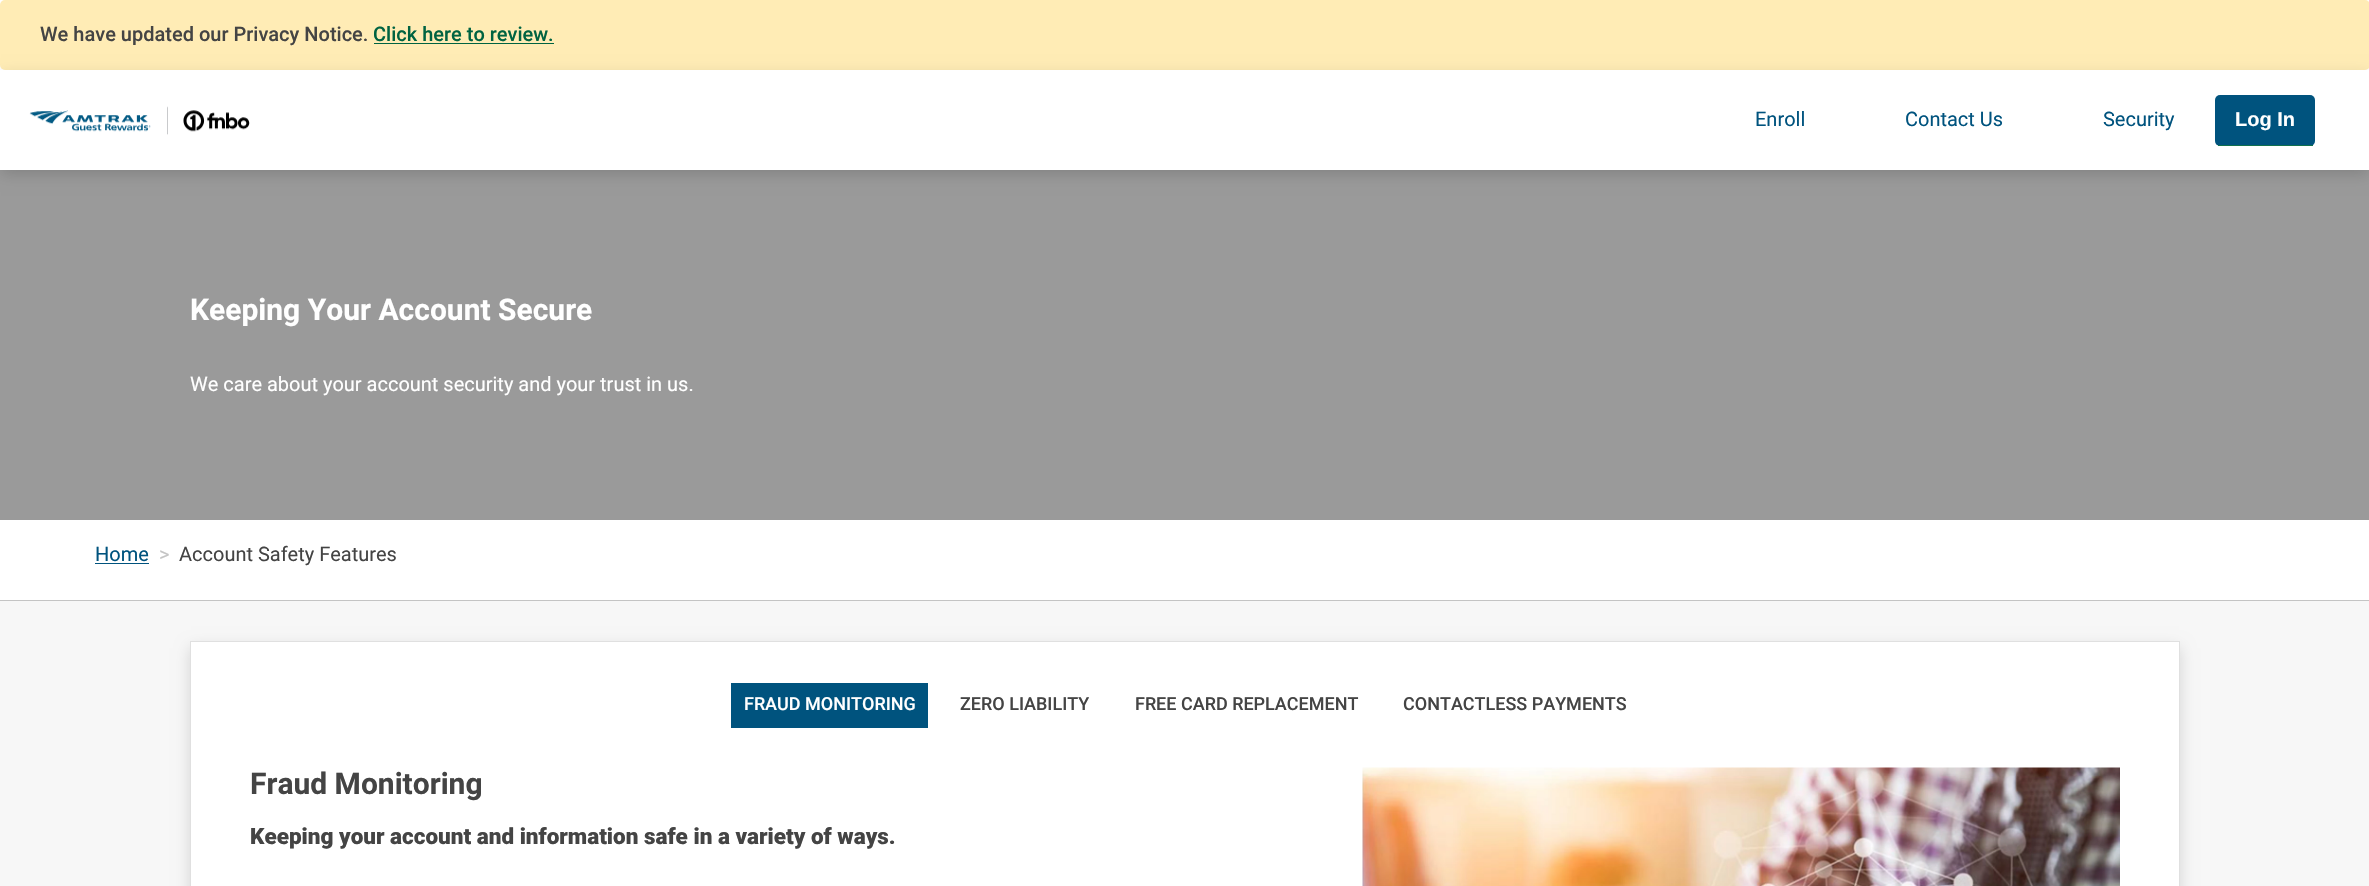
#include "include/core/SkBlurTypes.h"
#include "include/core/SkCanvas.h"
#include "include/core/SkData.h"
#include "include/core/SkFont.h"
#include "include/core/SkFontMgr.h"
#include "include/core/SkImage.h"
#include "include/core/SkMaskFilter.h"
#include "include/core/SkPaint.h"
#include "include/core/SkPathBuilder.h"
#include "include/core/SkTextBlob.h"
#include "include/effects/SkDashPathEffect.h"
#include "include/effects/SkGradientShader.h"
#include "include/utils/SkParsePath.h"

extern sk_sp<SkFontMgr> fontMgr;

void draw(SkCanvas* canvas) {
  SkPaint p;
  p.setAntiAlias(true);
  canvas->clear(SK_ColorWHITE);
  p.setColor(SkColorSetRGB(255, 236, 181));
  canvas->drawRoundRect(SkRect::MakeLTRB(0, 0, 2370, 70), 5, 5, p);
  p.setColor(SkColorSetRGB(0, 99, 65));
  canvas->drawRect(SkRect::MakeLTRB(374, 43, 554, 44), p);
  p.setColor(SkColorSetRGB(154, 154, 154));
  canvas->drawRect(SkRect::MakeLTRB(0, 170, 2369, 520), p);
  canvas->save();
  canvas->clipPath(SkPathBuilder(SkPathFillType::kEvenOdd).moveTo(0, 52).lineTo(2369, 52).lineTo(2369, 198).lineTo(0, 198).close().moveTo(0, 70).lineTo(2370, 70).lineTo(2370, 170).lineTo(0, 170).close().detach(), true);
  p.setColor(SkColorSetARGB(41, 0, 0, 0));
  p.setMaskFilter(SkMaskFilter::MakeBlur(kNormal_SkBlurStyle, 7.5f));
  canvas->drawRect(SkRect::MakeLTRB(1, 76, 2369, 174), p);
  p.setMaskFilter(nullptr);
  canvas->restore();
  canvas->drawImageRect(SkImages::DeferredFromEncodedData(SkData::MakeFromFileName("images/1.png")), SkRect::MakeLTRB(29, 106, 250, 135), SkSamplingOptions());
  p.setColor(SkColorSetRGB(0, 83, 126));
  canvas->drawRoundRect(SkRect::MakeLTRB(2215, 95, 2315, 146), 5, 5, p);
  p.setColor(SkColorSetRGB(17, 113, 78));
  canvas->drawRect(SkRect::MakeLTRB(2218, 145, 2313, 146), p);
  p.setColor(SkColorSetRGB(196, 196, 196));
  canvas->drawRect(SkRect::MakeLTRB(0, 600, 2369, 601), p);
  p.setColor(SkColorSetRGB(0, 83, 126));
  canvas->drawRect(SkRect::MakeLTRB(95, 563, 149, 564), p);
  p.setColor(SkColorSetRGB(247, 247, 247));
  canvas->drawRect(SkRect::MakeLTRB(0, 601, 2369, 886), p);
  p.setColor(SkColorSetARGB(41, 0, 0, 0));
  p.setMaskFilter(SkMaskFilter::MakeBlur(kNormal_SkBlurStyle, 7.5f));
  canvas->drawRect(SkRect::MakeLTRB(191, 648, 2179, 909), p);
  p.setMaskFilter(nullptr);
  p.setColor(SK_ColorWHITE);
  canvas->drawRect(SkRect::MakeLTRB(190.5f, 641.5f, 2179.5f, 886.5f), p);
  p.setStyle(SkPaint::kStroke_Style);
  p.setStrokeWidth(1);
  p.setColor(SkColorSetRGB(224, 224, 224));
  canvas->drawRect(SkRect::MakeLTRB(190.5f, 641.5f, 2179.5f, 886.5f), p);
  p.setStyle(SkPaint::kFill_Style);
  p.setColor(SkColorSetRGB(0, 83, 126));
  canvas->drawRect(SkRect::MakeLTRB(731, 683, 928, 728), p);
  canvas->drawImageRect(SkImages::DeferredFromEncodedData(SkData::MakeFromFileName("images/2.png")), SkRect::MakeLTRB(1362, 767, 2120, 886), SkSamplingOptions());
  SkFont font1(fontMgr->matchFamilyStyle("Roboto", SkFontStyle(500, SkFontStyle::kNormal_Width, SkFontStyle::kUpright_Slant)), 20);
  font1.setSubpixel(true);
  p.setColor(SkColorSetRGB(68, 68, 68));
  canvas->drawString("We have updated our Privacy Notice.", 40, 41, font1, p);
  p.setColor(SkColorSetRGB(0, 99, 65));
  canvas->drawString("Click here to review.", 373, 41, font1, p);
  SkFont font2(fontMgr->matchFamilyStyle("Roboto", SkFontStyle::Normal()), 20);
  font2.setSubpixel(true);
  p.setColor(SkColorSetRGB(0, 83, 126));
  canvas->drawString("Enroll", 1755, 126, font2, p);
  canvas->drawString("Contact Us", 1905, 126, font2, p);
  canvas->drawString("Security", 2103, 126, font2, p);
  SkFont font3(fontMgr->matchFamilyStyle("Liberation Sans", SkFontStyle::Bold()), 20);
  font3.setSubpixel(true);
  p.setColor(SK_ColorWHITE);
  canvas->drawString("Log In", 2235, 126, font3, p);
  SkFont font4(fontMgr->matchFamilyStyle("Roboto", SkFontStyle::Bold()), 30);
  font4.setSubpixel(true);
  canvas->drawString("Keeping Your Account Secure", 190, 320, font4, p);
  canvas->drawString("We care about your account security and your trust in us.", 190, 391, font2, p);
  p.setColor(SkColorSetRGB(0, 83, 126));
  canvas->drawString("Home", 95, 561, font2, p);
  p.setColor(SkColorSetRGB(196, 196, 196));
  canvas->drawString(">", 159, 561, font2, p);
  p.setColor(SkColorSetRGB(68, 68, 68));
  canvas->drawString("Account Safety Features", 179, 561, font2, p);
  SkFont font5(fontMgr->matchFamilyStyle("Roboto", SkFontStyle(500, SkFontStyle::kNormal_Width, SkFontStyle::kUpright_Slant)), 18);
  font5.setSubpixel(true);
  p.setColor(SK_ColorWHITE);
  canvas->drawString("FRAUD MONITORING", 744, 710, font5, p);
  p.setColor(SkColorSetRGB(68, 68, 68));
  canvas->drawString("ZERO LIABILITY", 960, 710, font5, p);
  canvas->drawString("FREE CARD REPLACEMENT", 1135, 710, font5, p);
  canvas->drawString("CONTACTLESS PAYMENTS", 1403, 710, font5, p);
  canvas->drawString("Fraud Monitoring", 250, 794, font4, p);
  SkFont font6(fontMgr->matchFamilyStyle("Roboto", SkFontStyle(900, SkFontStyle::kNormal_Width, SkFontStyle::kUpright_Slant)), 22.5f);
  font6.setSubpixel(true);
  canvas->drawString("Keeping your account and information safe in a variety of ways.", 250, 844, font6, p);
}
